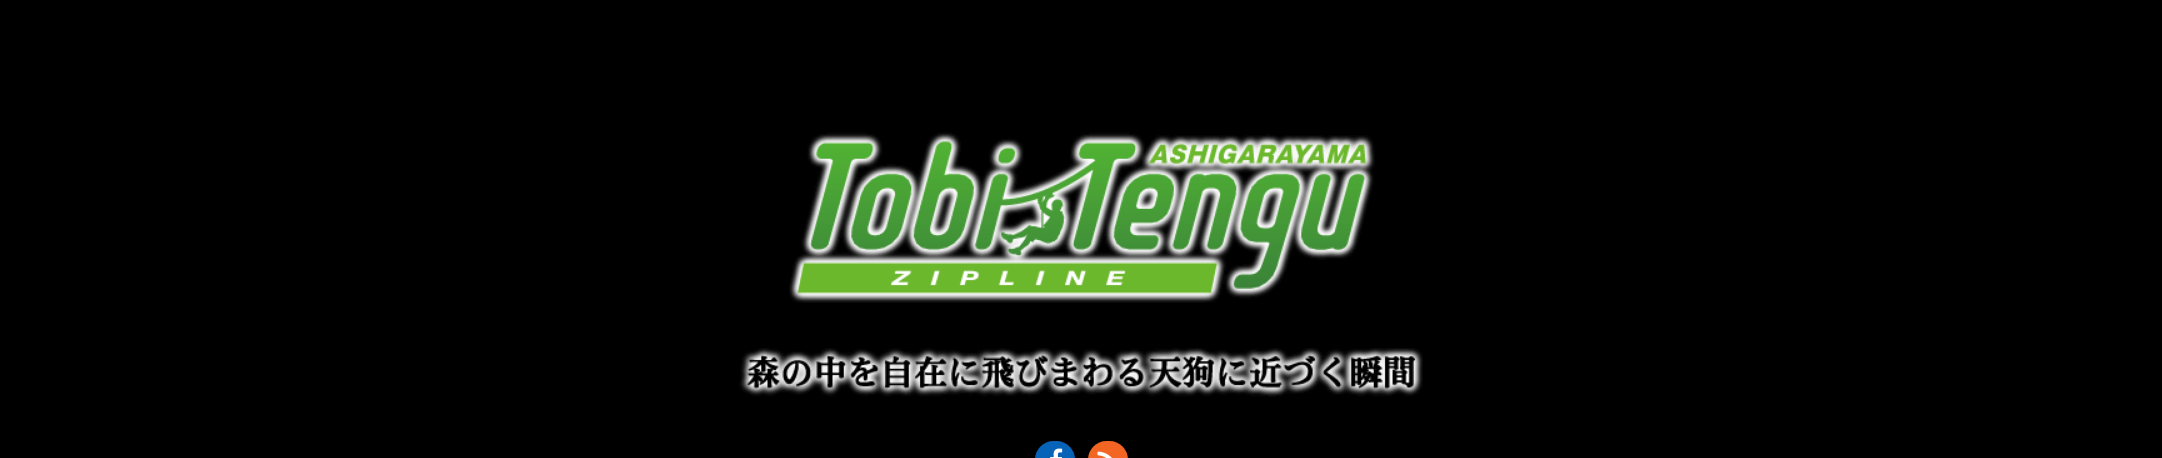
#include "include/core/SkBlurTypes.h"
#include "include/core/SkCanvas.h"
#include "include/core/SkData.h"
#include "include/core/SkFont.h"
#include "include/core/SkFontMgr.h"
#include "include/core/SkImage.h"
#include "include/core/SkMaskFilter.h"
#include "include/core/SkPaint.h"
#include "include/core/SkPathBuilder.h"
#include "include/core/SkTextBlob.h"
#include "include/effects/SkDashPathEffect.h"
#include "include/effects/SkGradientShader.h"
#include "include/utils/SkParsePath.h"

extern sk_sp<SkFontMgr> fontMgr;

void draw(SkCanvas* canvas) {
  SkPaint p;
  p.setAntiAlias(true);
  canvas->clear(SK_ColorBLACK);
  canvas->drawImageRect(SkImages::DeferredFromEncodedData(SkData::MakeFromFileName("images/1.png")), SkRect::MakeLTRB(789, 132, 1375, 303), SkSamplingOptions());
  canvas->drawImageRect(SkImages::DeferredFromEncodedData(SkData::MakeFromFileName("images/2.png")), SkRect::MakeLTRB(739, 348, 1423, 397), SkSamplingOptions());
  p.setColor(SkColorSetRGB(7, 99, 184));
  canvas->drawRoundRect(SkRect::MakeLTRB(1035, 441, 1075, 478), 20, 20, p);
  canvas->drawImageRect(SkImages::DeferredFromEncodedData(SkData::MakeFromFileName("images/3.png")), SkRect::MakeLTRB(1050, 448, 1063, 458), SkSamplingOptions());
  p.setColor(SkColorSetRGB(242, 101, 34));
  canvas->drawRoundRect(SkRect::MakeLTRB(1088, 441, 1128, 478), 20, 20, p);
  canvas->drawImageRect(SkImages::DeferredFromEncodedData(SkData::MakeFromFileName("images/4.png")), SkRect::MakeLTRB(1097, 451, 1112, 458), SkSamplingOptions());
}
